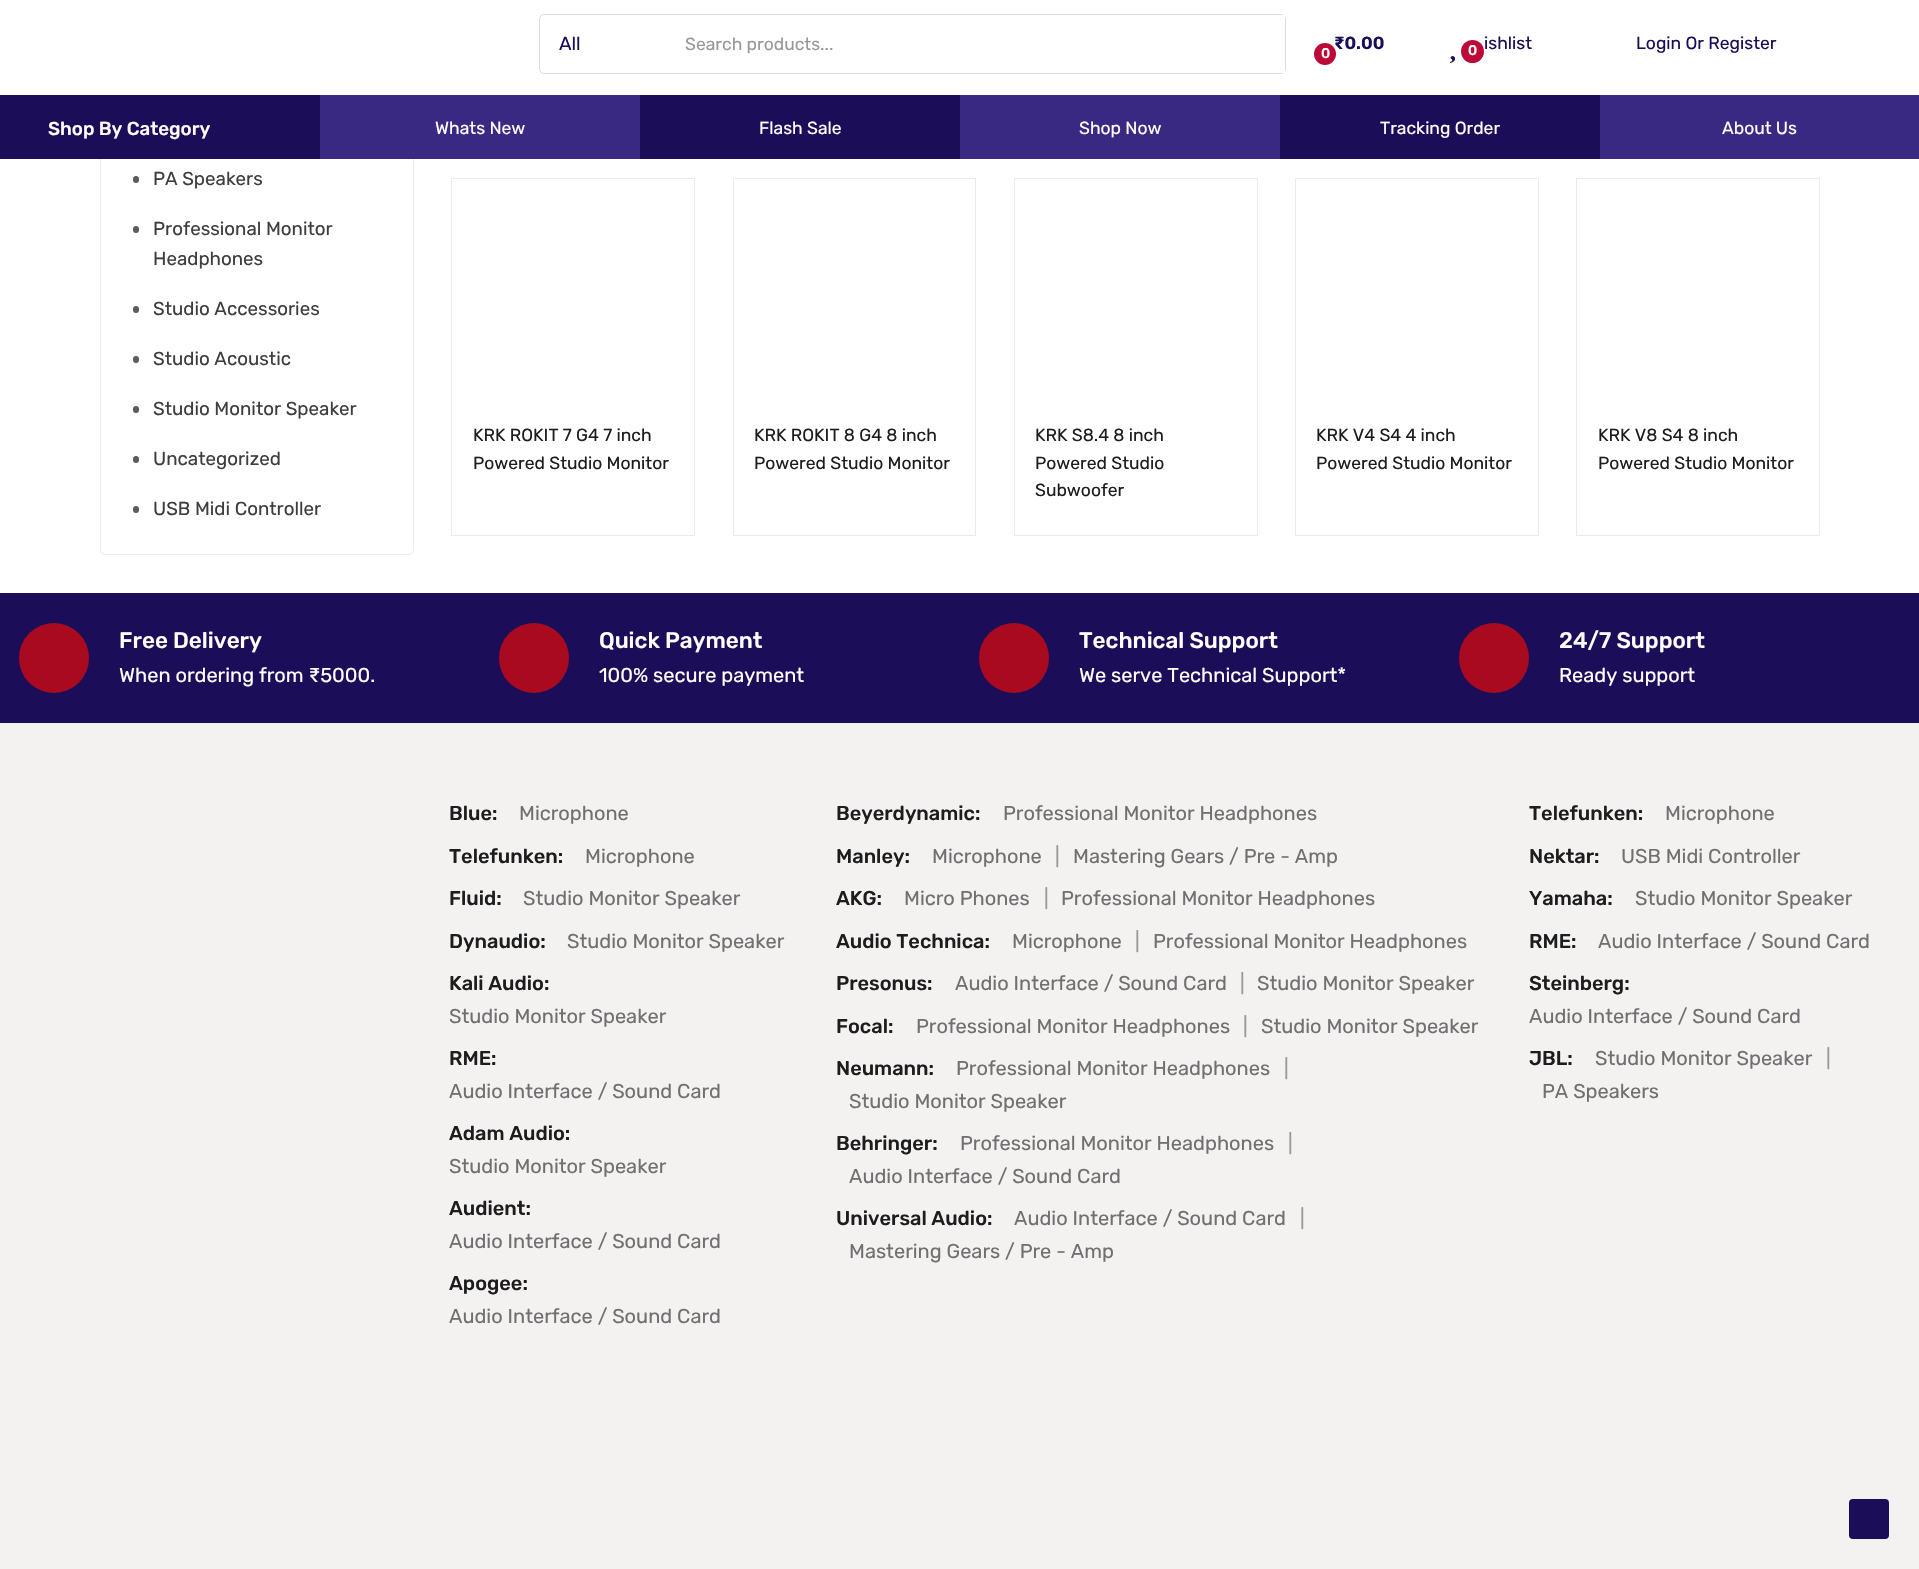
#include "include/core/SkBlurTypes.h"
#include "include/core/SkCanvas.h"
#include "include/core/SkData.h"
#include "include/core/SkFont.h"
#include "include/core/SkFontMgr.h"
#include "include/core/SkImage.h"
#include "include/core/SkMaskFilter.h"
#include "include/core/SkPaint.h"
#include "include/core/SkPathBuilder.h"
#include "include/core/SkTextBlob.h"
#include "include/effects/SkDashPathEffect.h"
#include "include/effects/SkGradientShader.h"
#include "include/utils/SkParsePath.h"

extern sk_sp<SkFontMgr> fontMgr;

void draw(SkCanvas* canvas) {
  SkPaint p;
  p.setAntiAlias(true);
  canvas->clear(SK_ColorWHITE);
  p.setStyle(SkPaint::kStroke_Style);
  p.setStrokeWidth(1);
  p.setColor(SkColorSetRGB(235, 235, 235));
  canvas->drawRoundRect(SkRect::MakeLTRB(100.5f, -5.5f, 413.5f, 554.5f), 4.5f, 4.5f, p);
  p.setStyle(SkPaint::kFill_Style);
  p.setColor(SK_ColorWHITE);
  canvas->drawRect(SkRect::MakeLTRB(100, 0, 414, 95), p);
  p.setStyle(SkPaint::kStroke_Style);
  p.setColor(SkColorSetRGB(220, 220, 220));
  canvas->drawRoundRect(SkRect::MakeLTRB(539.5f, 14.5f, 1285.5f, 73.5f), 4.5f, 4.5f, p);
  p.setStyle(SkPaint::kFill_Style);
  p.setColor(SK_ColorWHITE);
  canvas->drawRect(SkRect::MakeLTRB(1282, 15, 1285, 73), p);
  p.setColor(SkColorSetRGB(189, 9, 56));
  canvas->drawCircle(1472.5f, 51.5f, 11.5f, p);
  canvas->drawImageRect(SkImages::DeferredFromEncodedData(SkData::MakeFromFileName("images/1.png")), SkRect::MakeLTRB(1450, 56, 1455, 63), SkSamplingOptions());
  p.setColor(SkColorSetRGB(27, 13, 88));
  canvas->drawRect(SkRect::MakeLTRB(0, 95, 320, 159), p);
  p.setColor(SkColorSetRGB(58, 41, 131));
  canvas->drawRect(SkRect::MakeLTRB(320, 95, 640, 159), p);
  p.setColor(SkColorSetRGB(27, 13, 88));
  canvas->drawRect(SkRect::MakeLTRB(640, 95, 960, 159), p);
  p.setColor(SkColorSetRGB(58, 41, 131));
  canvas->drawRect(SkRect::MakeLTRB(960, 95, 1280, 159), p);
  p.setColor(SkColorSetRGB(27, 13, 88));
  canvas->drawRect(SkRect::MakeLTRB(1280, 95, 1600, 159), p);
  p.setColor(SkColorSetRGB(58, 41, 131));
  canvas->drawRect(SkRect::MakeLTRB(1600, 95, 1919, 159), p);
  p.setColor(SkColorSetRGB(92, 92, 92));
  canvas->drawRoundRect(SkRect::MakeLTRB(133, 176, 139, 183), 3, 3, p);
  canvas->drawRoundRect(SkRect::MakeLTRB(133, 226, 139, 233), 3, 3, p);
  canvas->drawRoundRect(SkRect::MakeLTRB(133, 306, 139, 313), 3, 3, p);
  canvas->drawRoundRect(SkRect::MakeLTRB(133, 356, 139, 363), 3, 3, p);
  canvas->drawRoundRect(SkRect::MakeLTRB(133, 406, 139, 413), 3, 3, p);
  canvas->drawRoundRect(SkRect::MakeLTRB(133, 456, 139, 463), 3, 3, p);
  canvas->drawRoundRect(SkRect::MakeLTRB(133, 506, 139, 513), 3, 3, p);
  p.setStyle(SkPaint::kStroke_Style);
  p.setColor(SkColorSetRGB(235, 235, 235));
  canvas->drawRect(SkRect::MakeLTRB(451.5f, 178.5f, 694.5f, 535.5f), p);
  canvas->drawRect(SkRect::MakeLTRB(733.5f, 178.5f, 975.5f, 535.5f), p);
  canvas->drawRect(SkRect::MakeLTRB(1014.5f, 178.5f, 1257.5f, 535.5f), p);
  canvas->drawRect(SkRect::MakeLTRB(1295.5f, 178.5f, 1538.5f, 535.5f), p);
  canvas->drawRect(SkRect::MakeLTRB(1576.5f, 178.5f, 1819.5f, 535.5f), p);
  p.setStyle(SkPaint::kFill_Style);
  p.setColor(SkColorSetRGB(27, 13, 88));
  canvas->drawRect(SkRect::MakeLTRB(0, 593, 1919, 723), p);
  p.setColor(SkColorSetRGB(170, 10, 31));
  canvas->drawCircle(54, 658, 35, p);
  canvas->drawCircle(534, 658, 35, p);
  canvas->drawCircle(1014, 658, 35, p);
  canvas->drawCircle(1494, 658, 35, p);
  p.setColor(SkColorSetRGB(244, 241, 241));
  canvas->drawRect(SkRect::MakeLTRB(0, 723, 1919, 1569), p);
  p.setColor(SkColorSetRGB(27, 13, 88));
  canvas->drawRoundRect(SkRect::MakeLTRB(1849, 1499, 1889, 1539), 4, 4, p);
  SkFont font1(fontMgr->matchFamilyStyle("Rubik", SkFontStyle::Normal()), 18.75f);
  font1.setSubpixel(true);
  canvas->drawString("All", 559, 50, font1, p);
  SkFont font2(fontMgr->matchFamilyStyle("Rubik", SkFontStyle::Normal()), 17.5f);
  font2.setSubpixel(true);
  p.setColor(SkColorSetRGB(153, 153, 153));
  canvas->drawString("Search products...", 685, 50, font2, p);
  SkFont font3(fontMgr->matchFamilyStyle("Rubik", SkFontStyle(600, SkFontStyle::kNormal_Width, SkFontStyle::kUpright_Slant)), 17.5f);
  font3.setSubpixel(true);
  p.setColor(SkColorSetRGB(27, 13, 88));
  canvas->drawString("₹0.00", 1334, 49, font3, p);
  p.setColor(SkColorSetRGB(189, 9, 56));
  canvas->drawCircle(1325, 54, 11, p);
  SkFont font4(fontMgr->matchFamilyStyle("Rubik", SkFontStyle(500, SkFontStyle::kNormal_Width, SkFontStyle::kUpright_Slant)), 14);
  font4.setSubpixel(true);
  p.setColor(SK_ColorWHITE);
  canvas->drawString("0", 1321, 58, font4, p);
  canvas->drawString("0", 1468, 55, font4, p);
  p.setColor(SkColorSetRGB(27, 13, 88));
  canvas->drawString("ishlist", 1484, 49, font2, p);
  canvas->drawString("Login Or Register", 1636, 49, font2, p);
  SkFont font5(fontMgr->matchFamilyStyle("Rubik", SkFontStyle(500, SkFontStyle::kNormal_Width, SkFontStyle::kUpright_Slant)), 18.75f);
  font5.setSubpixel(true);
  p.setColor(SK_ColorWHITE);
  canvas->drawString("Shop By Category", 48, 135, font5, p);
  canvas->drawString("Whats New", 435, 134, font2, p);
  canvas->drawString("Flash Sale", 759, 134, font2, p);
  canvas->drawString("Shop Now", 1079, 134, font2, p);
  canvas->drawString("Tracking Order", 1380, 134, font2, p);
  canvas->drawString("About Us", 1722, 134, font2, p);
  p.setColor(SkColorSetRGB(62, 62, 62));
  canvas->drawString("PA Speakers", 153, 185, font1, p);
  canvas->drawString("Professional Monitor", 153, 235, font1, p);
  canvas->drawString("Headphones", 153, 265, font1, p);
  canvas->drawString("Studio Accessories", 153, 315, font1, p);
  canvas->drawString("Studio Acoustic", 153, 365, font1, p);
  canvas->drawString("Studio Monitor Speaker", 153, 415, font1, p);
  canvas->drawString("Uncategorized", 153, 465, font1, p);
  canvas->drawString("USB Midi Controller", 153, 515, font1, p);
  p.setColor(SkColorSetRGB(29, 29, 29));
  canvas->drawString("KRK ROKIT 7 G4 7 inch", 473, 441, font2, p);
  canvas->drawString("Powered Studio Monitor", 473, 469, font2, p);
  canvas->drawString("KRK ROKIT 8 G4 8 inch", 754, 441, font2, p);
  canvas->drawString("Powered Studio Monitor", 754, 469, font2, p);
  canvas->drawString("KRK S8.4 8 inch", 1035, 441, font2, p);
  canvas->drawString("Powered Studio", 1035, 469, font2, p);
  canvas->drawString("Subwoofer", 1035, 496, font2, p);
  canvas->drawString("KRK V4 S4 4 inch", 1316, 441, font2, p);
  canvas->drawString("Powered Studio Monitor", 1316, 469, font2, p);
  canvas->drawString("KRK V8 S4 8 inch", 1598, 441, font2, p);
  canvas->drawString("Powered Studio Monitor", 1598, 469, font2, p);
  SkFont font6(fontMgr->matchFamilyStyle("Rubik", SkFontStyle(500, SkFontStyle::kNormal_Width, SkFontStyle::kUpright_Slant)), 22.5f);
  font6.setSubpixel(true);
  p.setColor(SK_ColorWHITE);
  canvas->drawString("Free Delivery", 119, 648, font6, p);
  SkFont font7(fontMgr->matchFamilyStyle("Rubik", SkFontStyle::Normal()), 20);
  font7.setSubpixel(true);
  canvas->drawString("When ordering from ₹5000.", 119, 682, font7, p);
  canvas->drawString("Quick Payment", 599, 648, font6, p);
  canvas->drawString("100% secure payment", 599, 682, font7, p);
  canvas->drawString("Technical Support", 1079, 648, font6, p);
  canvas->drawString("We serve Technical Support*", 1079, 682, font7, p);
  canvas->drawString("24/7 Support", 1559, 648, font6, p);
  canvas->drawString("Ready support", 1559, 682, font7, p);
  SkFont font8(fontMgr->matchFamilyStyle("Rubik", SkFontStyle(500, SkFontStyle::kNormal_Width, SkFontStyle::kUpright_Slant)), 20);
  font8.setSubpixel(true);
  p.setColor(SkColorSetRGB(29, 29, 29));
  canvas->drawString("Blue:", 449, 820, font8, p);
  p.setColor(SkColorSetRGB(112, 112, 112));
  canvas->drawString("Microphone", 519, 820, font7, p);
  p.setColor(SkColorSetRGB(29, 29, 29));
  canvas->drawString("Telefunken:", 449, 863, font8, p);
  p.setColor(SkColorSetRGB(112, 112, 112));
  canvas->drawString("Microphone", 585, 863, font7, p);
  p.setColor(SkColorSetRGB(29, 29, 29));
  canvas->drawString("Fluid:", 449, 905, font8, p);
  p.setColor(SkColorSetRGB(112, 112, 112));
  canvas->drawString("Studio Monitor Speaker", 523, 905, font7, p);
  p.setColor(SkColorSetRGB(29, 29, 29));
  canvas->drawString("Dynaudio:", 449, 948, font8, p);
  p.setColor(SkColorSetRGB(112, 112, 112));
  canvas->drawString("Studio Monitor Speaker", 567, 948, font7, p);
  p.setColor(SkColorSetRGB(29, 29, 29));
  canvas->drawString("Kali Audio:", 449, 990, font8, p);
  p.setColor(SkColorSetRGB(112, 112, 112));
  canvas->drawString("Studio Monitor Speaker", 449, 1023, font7, p);
  p.setColor(SkColorSetRGB(29, 29, 29));
  canvas->drawString("RME:", 449, 1065, font8, p);
  p.setColor(SkColorSetRGB(112, 112, 112));
  canvas->drawString("Audio Interface / Sound Card", 449, 1098, font7, p);
  p.setColor(SkColorSetRGB(29, 29, 29));
  canvas->drawString("Adam Audio:", 449, 1140, font8, p);
  p.setColor(SkColorSetRGB(112, 112, 112));
  canvas->drawString("Studio Monitor Speaker", 449, 1173, font7, p);
  p.setColor(SkColorSetRGB(29, 29, 29));
  canvas->drawString("Audient:", 449, 1215, font8, p);
  p.setColor(SkColorSetRGB(112, 112, 112));
  canvas->drawString("Audio Interface / Sound Card", 449, 1248, font7, p);
  p.setColor(SkColorSetRGB(29, 29, 29));
  canvas->drawString("Apogee:", 449, 1290, font8, p);
  p.setColor(SkColorSetRGB(112, 112, 112));
  canvas->drawString("Audio Interface / Sound Card", 449, 1323, font7, p);
  p.setColor(SkColorSetRGB(29, 29, 29));
  canvas->drawString("Beyerdynamic:", 836, 820, font8, p);
  p.setColor(SkColorSetRGB(112, 112, 112));
  canvas->drawString("Professional Monitor Headphones", 1003, 820, font7, p);
  p.setColor(SkColorSetRGB(29, 29, 29));
  canvas->drawString("Manley:", 836, 863, font8, p);
  p.setColor(SkColorSetRGB(112, 112, 112));
  canvas->drawString("Microphone", 932, 863, font7, p);
  p.setColor(SkColorSetRGB(153, 153, 153));
  canvas->drawString("|", 1055, 863, font7, p);
  p.setColor(SkColorSetRGB(112, 112, 112));
  canvas->drawString("Mastering Gears / Pre - Amp", 1073, 863, font7, p);
  p.setColor(SkColorSetRGB(29, 29, 29));
  canvas->drawString("AKG:", 836, 905, font8, p);
  p.setColor(SkColorSetRGB(112, 112, 112));
  canvas->drawString("Micro Phones", 904, 905, font7, p);
  p.setColor(SkColorSetRGB(153, 153, 153));
  canvas->drawString("|", 1044, 905, font7, p);
  p.setColor(SkColorSetRGB(112, 112, 112));
  canvas->drawString("Professional Monitor Headphones", 1061, 905, font7, p);
  p.setColor(SkColorSetRGB(29, 29, 29));
  canvas->drawString("Audio Technica:", 836, 948, font8, p);
  p.setColor(SkColorSetRGB(112, 112, 112));
  canvas->drawString("Microphone", 1012, 948, font7, p);
  p.setColor(SkColorSetRGB(153, 153, 153));
  canvas->drawString("|", 1135, 948, font7, p);
  p.setColor(SkColorSetRGB(112, 112, 112));
  canvas->drawString("Professional Monitor Headphones", 1153, 948, font7, p);
  p.setColor(SkColorSetRGB(29, 29, 29));
  canvas->drawString("Presonus:", 836, 990, font8, p);
  p.setColor(SkColorSetRGB(112, 112, 112));
  canvas->drawString("Audio Interface / Sound Card", 955, 990, font7, p);
  p.setColor(SkColorSetRGB(153, 153, 153));
  canvas->drawString("|", 1240, 990, font7, p);
  p.setColor(SkColorSetRGB(112, 112, 112));
  canvas->drawString("Studio Monitor Speaker", 1257, 990, font7, p);
  p.setColor(SkColorSetRGB(29, 29, 29));
  canvas->drawString("Focal:", 836, 1033, font8, p);
  p.setColor(SkColorSetRGB(112, 112, 112));
  canvas->drawString("Professional Monitor Headphones", 916, 1033, font7, p);
  p.setColor(SkColorSetRGB(153, 153, 153));
  canvas->drawString("|", 1243, 1033, font7, p);
  p.setColor(SkColorSetRGB(112, 112, 112));
  canvas->drawString("Studio Monitor Speaker", 1261, 1033, font7, p);
  canvas->drawString("Professional Monitor Headphones", 956, 1075, font7, p);
  p.setColor(SkColorSetRGB(153, 153, 153));
  canvas->drawString("|", 1284, 1075, font7, p);
  p.setColor(SkColorSetRGB(112, 112, 112));
  canvas->drawString("Studio Monitor Speaker", 849, 1108, font7, p);
  p.setColor(SkColorSetRGB(29, 29, 29));
  canvas->drawString("Neumann:", 836, 1075, font8, p);
  p.setColor(SkColorSetRGB(112, 112, 112));
  canvas->drawString("Professional Monitor Headphones", 960, 1150, font7, p);
  p.setColor(SkColorSetRGB(153, 153, 153));
  canvas->drawString("|", 1288, 1150, font7, p);
  p.setColor(SkColorSetRGB(112, 112, 112));
  canvas->drawString("Audio Interface / Sound Card", 849, 1183, font7, p);
  p.setColor(SkColorSetRGB(29, 29, 29));
  canvas->drawString("Behringer:", 836, 1150, font8, p);
  p.setColor(SkColorSetRGB(112, 112, 112));
  canvas->drawString("Audio Interface / Sound Card", 1014, 1225, font7, p);
  p.setColor(SkColorSetRGB(153, 153, 153));
  canvas->drawString("|", 1300, 1225, font7, p);
  p.setColor(SkColorSetRGB(112, 112, 112));
  canvas->drawString("Mastering Gears / Pre - Amp", 849, 1258, font7, p);
  p.setColor(SkColorSetRGB(29, 29, 29));
  canvas->drawString("Universal Audio:", 836, 1225, font8, p);
  canvas->drawString("Telefunken:", 1529, 820, font8, p);
  p.setColor(SkColorSetRGB(112, 112, 112));
  canvas->drawString("Microphone", 1665, 820, font7, p);
  p.setColor(SkColorSetRGB(29, 29, 29));
  canvas->drawString("Nektar:", 1529, 863, font8, p);
  p.setColor(SkColorSetRGB(112, 112, 112));
  canvas->drawString("USB Midi Controller", 1621, 863, font7, p);
  p.setColor(SkColorSetRGB(29, 29, 29));
  canvas->drawString("Yamaha:", 1529, 905, font8, p);
  p.setColor(SkColorSetRGB(112, 112, 112));
  canvas->drawString("Studio Monitor Speaker", 1635, 905, font7, p);
  p.setColor(SkColorSetRGB(29, 29, 29));
  canvas->drawString("RME:", 1529, 948, font8, p);
  p.setColor(SkColorSetRGB(112, 112, 112));
  canvas->drawString("Audio Interface / Sound Card", 1598, 948, font7, p);
  p.setColor(SkColorSetRGB(29, 29, 29));
  canvas->drawString("Steinberg:", 1529, 990, font8, p);
  p.setColor(SkColorSetRGB(112, 112, 112));
  canvas->drawString("Audio Interface / Sound Card", 1529, 1023, font7, p);
  canvas->drawString("Studio Monitor Speaker", 1595, 1065, font7, p);
  p.setColor(SkColorSetRGB(153, 153, 153));
  canvas->drawString("|", 1826, 1065, font7, p);
  p.setColor(SkColorSetRGB(112, 112, 112));
  canvas->drawString("PA Speakers", 1542, 1098, font7, p);
  p.setColor(SkColorSetRGB(29, 29, 29));
  canvas->drawString("JBL:", 1529, 1065, font8, p);
}
